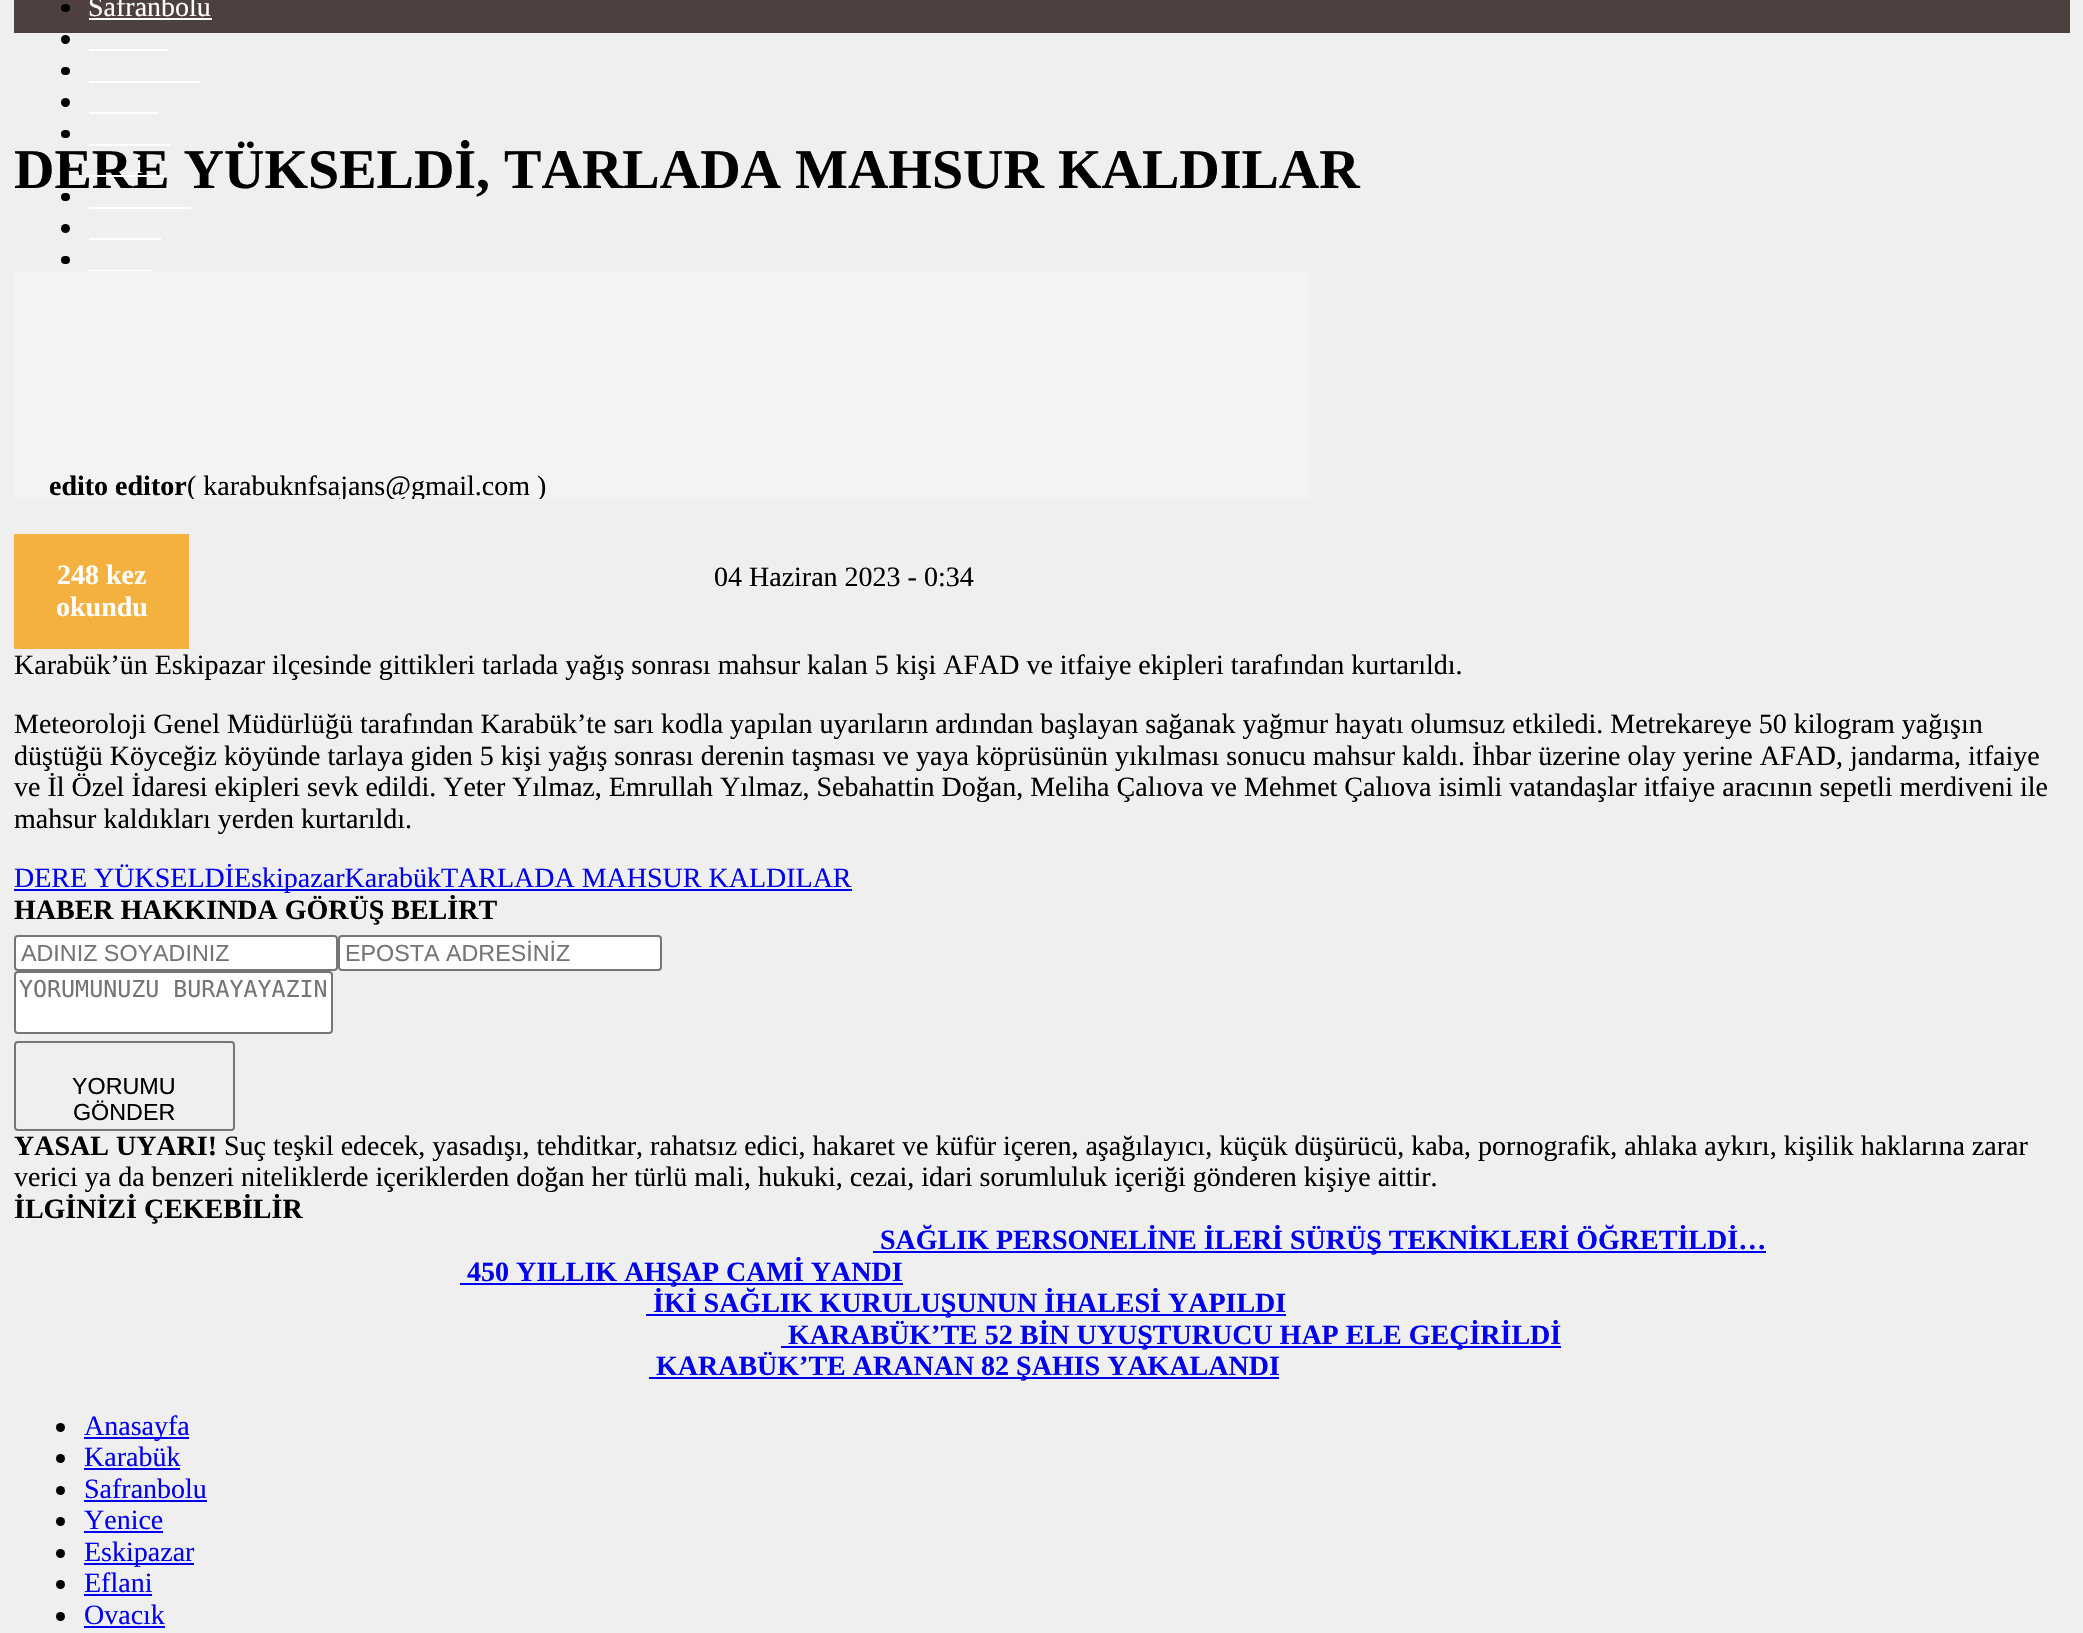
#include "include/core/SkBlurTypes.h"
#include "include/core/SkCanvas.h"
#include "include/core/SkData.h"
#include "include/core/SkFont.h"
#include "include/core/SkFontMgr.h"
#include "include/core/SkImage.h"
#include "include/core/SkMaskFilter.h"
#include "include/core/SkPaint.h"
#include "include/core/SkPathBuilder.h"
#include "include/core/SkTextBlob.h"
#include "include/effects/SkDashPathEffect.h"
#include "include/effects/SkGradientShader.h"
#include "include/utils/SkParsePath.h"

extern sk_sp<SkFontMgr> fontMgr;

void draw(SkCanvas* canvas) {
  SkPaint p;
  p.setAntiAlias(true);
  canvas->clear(SkColorSetRGB(239, 239, 239));
  p.setColor(SkColorSetRGB(78, 64, 63));
  canvas->drawRect(SkRect::MakeLTRB(14, 0, 2070, 33), p);
  p.setColor(SK_ColorBLACK);
  canvas->drawRoundRect(SkRect::MakeLTRB(61, 4, 70, 12), 4, 4, p);
  p.setColor(SK_ColorWHITE);
  canvas->drawRect(SkRect::MakeLTRB(89, 18, 212, 20), p);
  p.setColor(SK_ColorBLACK);
  canvas->drawCircle(65.5f, 39.5f, 4.5f, p);
  p.setColor(SK_ColorWHITE);
  canvas->drawRect(SkRect::MakeLTRB(89, 49, 168, 51), p);
  p.setColor(SK_ColorBLACK);
  canvas->drawRoundRect(SkRect::MakeLTRB(61, 67, 70, 75), 4, 4, p);
  p.setColor(SK_ColorWHITE);
  canvas->drawRect(SkRect::MakeLTRB(89, 81, 200, 83), p);
  p.setColor(SK_ColorBLACK);
  canvas->drawCircle(65.5f, 102.5f, 4.5f, p);
  p.setColor(SK_ColorWHITE);
  canvas->drawRect(SkRect::MakeLTRB(89, 112, 158, 114), p);
  p.setColor(SK_ColorBLACK);
  canvas->drawRoundRect(SkRect::MakeLTRB(61, 130, 70, 138), 4, 4, p);
  canvas->drawCircle(65.5f, 165.5f, 4.5f, p);
  canvas->drawRoundRect(SkRect::MakeLTRB(61, 193, 70, 201), 4, 4, p);
  p.setColor(SK_ColorWHITE);
  canvas->drawRect(SkRect::MakeLTRB(89, 207, 191, 209), p);
  p.setColor(SK_ColorBLACK);
  canvas->drawCircle(65.5f, 228.5f, 4.5f, p);
  p.setColor(SK_ColorWHITE);
  canvas->drawRect(SkRect::MakeLTRB(89, 238, 161, 240), p);
  p.setColor(SK_ColorBLACK);
  canvas->drawRoundRect(SkRect::MakeLTRB(61, 256, 70, 264), 4, 4, p);
  p.setColor(SK_ColorWHITE);
  canvas->drawRect(SkRect::MakeLTRB(89, 270, 151, 271), p);
  p.setColor(SkColorSetRGB(243, 243, 243));
  canvas->drawRect(SkRect::MakeLTRB(14, 271, 1309, 499), p);
  p.setColor(SkColorSetRGB(244, 177, 64));
  canvas->drawRect(SkRect::MakeLTRB(14, 534, 189, 649), p);
  p.setColor(SkColorSetRGB(0, 0, 238));
  canvas->drawRect(SkRect::MakeLTRB(14, 889, 852, 891), p);
  p.setColor(SK_ColorWHITE);
  canvas->drawRoundRect(SkRect::MakeLTRB(15, 936, 337, 970), 3, 3, p);
  p.setStyle(SkPaint::kStroke_Style);
  p.setStrokeWidth(2);
  p.setColor(SkColorSetRGB(118, 118, 118));
  canvas->drawRoundRect(SkRect::MakeLTRB(15, 936, 337, 970), 3, 3, p);
  p.setStyle(SkPaint::kFill_Style);
  p.setColor(SK_ColorWHITE);
  canvas->drawRoundRect(SkRect::MakeLTRB(339, 936, 661, 970), 3, 3, p);
  p.setStyle(SkPaint::kStroke_Style);
  p.setColor(SkColorSetRGB(118, 118, 118));
  canvas->drawRoundRect(SkRect::MakeLTRB(339, 936, 661, 970), 3, 3, p);
  p.setStyle(SkPaint::kFill_Style);
  p.setColor(SK_ColorWHITE);
  canvas->drawRoundRect(SkRect::MakeLTRB(15, 972, 332, 1033), 3, 3, p);
  p.setStyle(SkPaint::kStroke_Style);
  p.setColor(SkColorSetRGB(118, 118, 118));
  canvas->drawRoundRect(SkRect::MakeLTRB(15, 972, 332, 1033), 3, 3, p);
  canvas->drawRoundRect(SkRect::MakeLTRB(15, 1042, 234, 1130), 3, 3, p);
  p.setStyle(SkPaint::kFill_Style);
  p.setColor(SkColorSetRGB(0, 0, 238));
  canvas->drawRect(SkRect::MakeLTRB(873, 1251, 1766, 1253), p);
  canvas->drawRect(SkRect::MakeLTRB(460, 1283, 903, 1285), p);
  canvas->drawRect(SkRect::MakeLTRB(646, 1314, 1286, 1316), p);
  canvas->drawRect(SkRect::MakeLTRB(781, 1346, 1561, 1348), p);
  canvas->drawRect(SkRect::MakeLTRB(649, 1377, 1279, 1379), p);
  p.setColor(SK_ColorBLACK);
  canvas->drawCircle(60.5f, 1427.5f, 4.5f, p);
  p.setColor(SkColorSetRGB(0, 0, 238));
  canvas->drawRect(SkRect::MakeLTRB(84, 1437, 189, 1439), p);
  p.setColor(SK_ColorBLACK);
  canvas->drawCircle(60.5f, 1458.5f, 4.5f, p);
  p.setColor(SkColorSetRGB(0, 0, 238));
  canvas->drawRect(SkRect::MakeLTRB(84, 1468, 180, 1470), p);
  p.setColor(SK_ColorBLACK);
  canvas->drawCircle(60.5f, 1490.5f, 4.5f, p);
  p.setColor(SkColorSetRGB(0, 0, 238));
  canvas->drawRect(SkRect::MakeLTRB(84, 1500, 207, 1502), p);
  p.setColor(SK_ColorBLACK);
  canvas->drawCircle(60.5f, 1521.5f, 4.5f, p);
  p.setColor(SkColorSetRGB(0, 0, 238));
  canvas->drawRect(SkRect::MakeLTRB(84, 1531, 163, 1533), p);
  p.setColor(SK_ColorBLACK);
  canvas->drawCircle(60.5f, 1553.5f, 4.5f, p);
  p.setColor(SkColorSetRGB(0, 0, 238));
  canvas->drawRect(SkRect::MakeLTRB(84, 1563, 194, 1565), p);
  p.setColor(SK_ColorBLACK);
  canvas->drawCircle(60.5f, 1584.5f, 4.5f, p);
  p.setColor(SkColorSetRGB(0, 0, 238));
  canvas->drawRect(SkRect::MakeLTRB(84, 1594, 152, 1596), p);
  p.setColor(SK_ColorBLACK);
  canvas->drawCircle(60.5f, 1616.5f, 4.5f, p);
  p.setColor(SkColorSetRGB(0, 0, 238));
  canvas->drawRect(SkRect::MakeLTRB(84, 1626, 165, 1628), p);
  SkFont font1(fontMgr->matchFamilyStyle("Liberation Serif", SkFontStyle::Normal()), 28);
  font1.setSubpixel(true);
  p.setColor(SK_ColorWHITE);
  canvas->drawString("Safranbolu", 88, 16, font1, p);
  SkFont font2(fontMgr->matchFamilyStyle("Liberation Serif", SkFontStyle::Bold()), 56);
  font2.setSubpixel(true);
  p.setColor(SK_ColorBLACK);
  canvas->drawString("DERE YÜKSELDİ, TARLADA MAHSUR KALDILAR", 14, 188, font2, p);
  p.setColor(SK_ColorWHITE);
  canvas->drawString("i", 135, 173, font1, p);
  canvas->drawRect(SkRect::MakeLTRB(89, 175, 165, 177), p);
  canvas->drawRect(SkRect::MakeLTRB(89, 144, 170, 146), p);
  SkFont font3(fontMgr->matchFamilyStyle("Liberation Serif", SkFontStyle::Bold()), 28);
  font3.setSubpixel(true);
  p.setColor(SK_ColorBLACK);
  canvas->drawString("edito editor", 49, 495, font3, p);
  canvas->save();
  canvas->clipRect(SkRect::MakeLTRB(14, 271, 1309, 499));
  canvas->drawString("( karabuknfsajans@gmail.com )", 187, 495, font1, p);
  canvas->restore();
  p.setColor(SK_ColorWHITE);
  canvas->drawString("248 kez", 57, 584, font3, p);
  canvas->drawString("okundu", 56, 616, font3, p);
  p.setColor(SK_ColorBLACK);
  canvas->drawString("04 Haziran 2023 - 0:34", 714, 586, font1, p);
  canvas->drawString("Karabük’ün Eskipazar ilçesinde gittikleri tarlada yağış sonrası mahsur kalan 5 kişi AFAD ve itfaiye ekipleri tarafından kurtarıldı.", 14, 674, font1, p);
  canvas->drawString("Meteoroloji Genel Müdürlüğü tarafından Karabük’te sarı kodla yapılan uyarıların ardından başlayan sağanak yağmur hayatı olumsuz etkiledi. Metrekareye 50 kilogram yağışın", 14, 733, font1, p);
  canvas->drawString("düştüğü Köyceğiz köyünde tarlaya giden 5 kişi yağış sonrası derenin taşması ve yaya köprüsünün yıkılması sonucu mahsur kaldı. İhbar üzerine olay yerine AFAD, jandarma, itfaiye", 14, 765, font1, p);
  canvas->drawString("ve İl Özel İdaresi ekipleri sevk edildi. Yeter Yılmaz, Emrullah Yılmaz, Sebahattin Doğan, Meliha Çalıova ve Mehmet Çalıova isimli vatandaşlar itfaiye aracının sepetli merdiveni ile", 14, 796, font1, p);
  canvas->drawString("mahsur kaldıkları yerden kurtarıldı.", 14, 828, font1, p);
  p.setColor(SkColorSetRGB(0, 0, 238));
  canvas->drawString("DERE YÜKSELDİEskipazarKarabükTARLADA MAHSUR KALDILAR", 14, 887, font1, p);
  p.setColor(SK_ColorBLACK);
  canvas->drawString("HABER HAKKINDA GÖRÜŞ BELİRT", 14, 919, font3, p);
  SkFont font4(fontMgr->matchFamilyStyle("Liberation Sans", SkFontStyle::Normal()), 23.3f);
  font4.setSubpixel(true);
  p.setColor(SkColorSetRGB(117, 117, 117));
  canvas->drawString("ADINIZ SOYADINIZ", 21, 961, font4, p);
  canvas->drawString("EPOSTA ADRESİNİZ", 345, 961, font4, p);
  SkFont font5(fontMgr->matchFamilyStyle("DejaVu Sans Mono", SkFontStyle::Normal()), 23.3f);
  font5.setSubpixel(true);
  canvas->drawString("YORUMUNUZU BURAYAYAZIN", 19, 997, font5, p);
  p.setColor(SK_ColorBLACK);
  canvas->drawString("YORUMU", 72, 1094, font4, p);
  canvas->drawString("GÖNDER", 73, 1120, font4, p);
  canvas->drawString("YASAL UYARI!", 14, 1155, font3, p);
  canvas->drawString("Suç teşkil edecek, yasadışı, tehditkar, rahatsız edici, hakaret ve küfür içeren, aşağılayıcı, küçük düşürücü, kaba, pornografik, ahlaka aykırı, kişilik haklarına zarar", 224, 1155, font1, p);
  canvas->drawString("verici ya da benzeri niteliklerde içeriklerden doğan her türlü mali, hukuki, cezai, idari sorumluluk içeriği gönderen kişiye aittir.", 14, 1186, font1, p);
  canvas->drawString("İLGİNİZİ ÇEKEBİLİR", 14, 1218, font3, p);
  p.setColor(SkColorSetRGB(0, 0, 238));
  canvas->drawString("SAĞLIK PERSONELİNE İLERİ SÜRÜŞ TEKNİKLERİ ÖĞRETİLDİ…", 880, 1249, font3, p);
  canvas->drawString("450 YILLIK AHŞAP CAMİ YANDI", 467, 1281, font3, p);
  canvas->drawString("İKİ SAĞLIK KURULUŞUNUN İHALESİ YAPILDI", 653, 1312, font3, p);
  canvas->drawString("KARABÜK’TE 52 BİN UYUŞTURUCU HAP ELE GEÇİRİLDİ", 788, 1344, font3, p);
  canvas->drawString("KARABÜK’TE ARANAN 82 ŞAHIS YAKALANDI", 656, 1375, font3, p);
  canvas->drawString("Anasayfa", 84, 1435, font1, p);
  canvas->drawString("Karabük", 84, 1466, font1, p);
  canvas->drawString("Safranbolu", 84, 1498, font1, p);
  canvas->drawString("Yenice", 84, 1529, font1, p);
  canvas->drawString("Eskipazar", 84, 1561, font1, p);
  canvas->drawString("Eflani", 84, 1592, font1, p);
  canvas->drawString("Ovacık", 84, 1624, font1, p);
}
